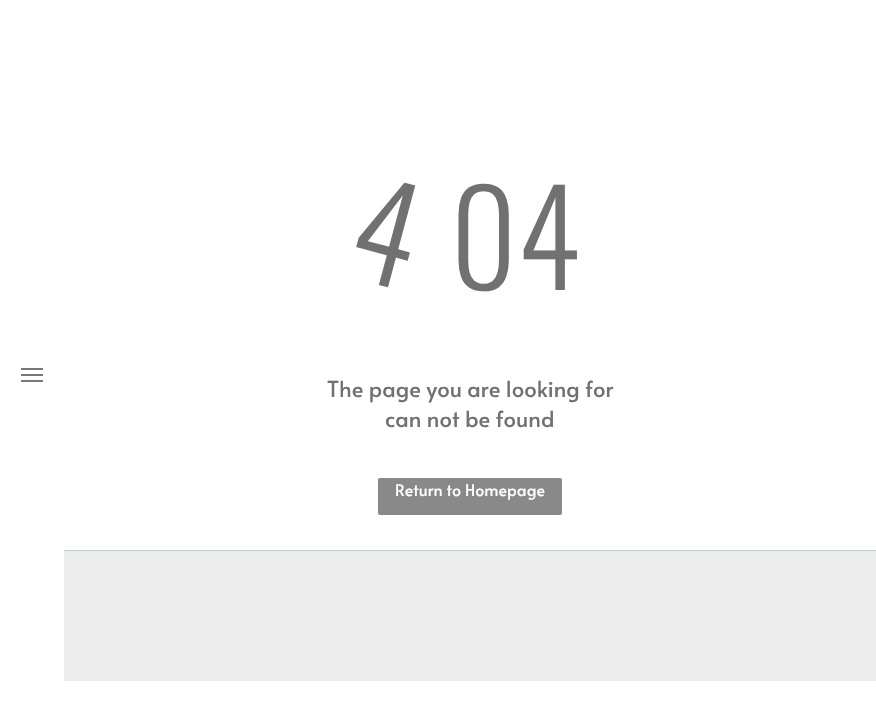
#include "include/core/SkBlurTypes.h"
#include "include/core/SkCanvas.h"
#include "include/core/SkData.h"
#include "include/core/SkFont.h"
#include "include/core/SkFontMgr.h"
#include "include/core/SkImage.h"
#include "include/core/SkMaskFilter.h"
#include "include/core/SkPaint.h"
#include "include/core/SkPathBuilder.h"
#include "include/core/SkTextBlob.h"
#include "include/effects/SkDashPathEffect.h"
#include "include/effects/SkGradientShader.h"
#include "include/utils/SkParsePath.h"

extern sk_sp<SkFontMgr> fontMgr;

void draw(SkCanvas* canvas) {
  SkPaint p;
  p.setAntiAlias(true);
  canvas->clear(SK_ColorWHITE);
  p.setColor(SkColorSetRGB(120, 120, 120));
  canvas->drawRect(SkRect::MakeLTRB(21, 368, 43, 370), p);
  canvas->drawRect(SkRect::MakeLTRB(21, 374, 43, 376), p);
  canvas->drawRect(SkRect::MakeLTRB(21, 380, 43, 382), p);
  p.setColor(SkColorSetRGB(137, 137, 137));
  canvas->drawRoundRect(SkRect::MakeLTRB(378, 478, 562, 515), 2, 2, p);
  p.setColor(SkColorSetRGB(236, 236, 236));
  canvas->drawRect(SkRect::MakeLTRB(64, 551, 876, 681), p);
  p.setColor(SkColorSetRGB(183, 210, 211));
  canvas->drawRect(SkRect::MakeLTRB(64, 550, 876, 551), p);
  SkFont font1(fontMgr->matchFamilyStyle("Oswald", SkFontStyle(300, SkFontStyle::kNormal_Width, SkFontStyle::kUpright_Slant)), 130);
  font1.setSubpixel(true);
  p.setColor(SkColorSetRGB(114, 112, 112));
  canvas->save();
  canvas->rotate(15, 342, 275);
  canvas->drawString("4", 342, 275, font1, p);
  canvas->restore();
  canvas->drawString("04", 450, 290, font1, p);
  SkFont font2(fontMgr->matchFamilyStyle("Alata", SkFontStyle::Normal()), 22);
  font2.setSubpixel(true);
  canvas->drawString("The page you are looking for", 327, 397, font2, p);
  canvas->drawString("can not be found", 385, 427, font2, p);
  SkFont font3(fontMgr->matchFamilyStyle("Alata", SkFontStyle::Normal()), 16);
  font3.setSubpixel(true);
  p.setColor(SK_ColorWHITE);
  canvas->drawString("Return to Homepage", 395, 496, font3, p);
}
